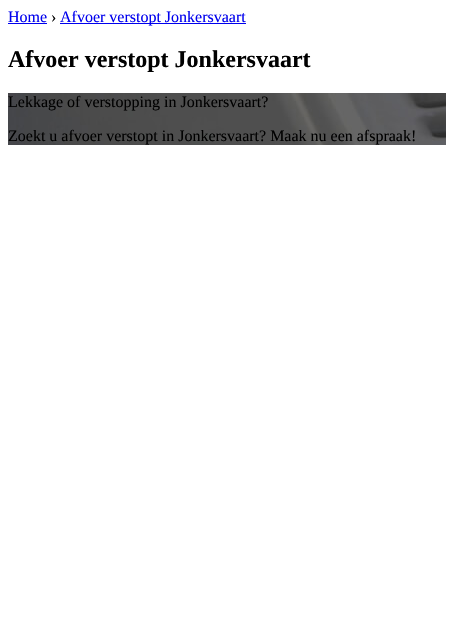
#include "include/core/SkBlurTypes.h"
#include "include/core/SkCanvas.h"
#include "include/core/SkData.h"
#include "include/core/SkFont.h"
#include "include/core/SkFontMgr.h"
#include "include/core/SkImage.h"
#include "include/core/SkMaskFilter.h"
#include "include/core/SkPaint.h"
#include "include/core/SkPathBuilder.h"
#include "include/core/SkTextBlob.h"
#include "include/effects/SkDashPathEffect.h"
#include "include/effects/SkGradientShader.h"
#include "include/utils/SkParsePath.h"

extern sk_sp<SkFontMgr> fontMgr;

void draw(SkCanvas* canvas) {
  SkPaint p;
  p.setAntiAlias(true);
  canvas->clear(SK_ColorWHITE);
  p.setColor(SkColorSetRGB(0, 0, 238));
  canvas->drawRect(SkRect::MakeLTRB(8, 23, 47, 24), p);
  canvas->drawRect(SkRect::MakeLTRB(60, 23, 246, 24), p);
  canvas->drawImageRect(SkImages::DeferredFromEncodedData(SkData::MakeFromFileName("images/1.png")), SkRect::MakeLTRB(8, 93, 446, 145), SkSamplingOptions());
  SkFont font1(fontMgr->matchFamilyStyle("Liberation Serif", SkFontStyle::Normal()), 16);
  font1.setSubpixel(true);
  canvas->drawString("Home", 8, 22, font1, p);
  p.setColor(SK_ColorBLACK);
  canvas->drawString("›", 51, 22, font1, p);
  p.setColor(SkColorSetRGB(0, 0, 238));
  canvas->drawString("Afvoer verstopt Jonkersvaart", 60, 22, font1, p);
  SkFont font2(fontMgr->matchFamilyStyle("Liberation Serif", SkFontStyle::Bold()), 24);
  font2.setSubpixel(true);
  p.setColor(SK_ColorBLACK);
  canvas->drawString("Afvoer verstopt Jonkersvaart", 8, 67, font2, p);
  canvas->drawString("Lekkage of verstopping in Jonkersvaart?", 8, 107, font1, p);
  canvas->drawString("Zoekt u afvoer verstopt in Jonkersvaart? Maak nu een afspraak!", 8, 141, font1, p);
}
